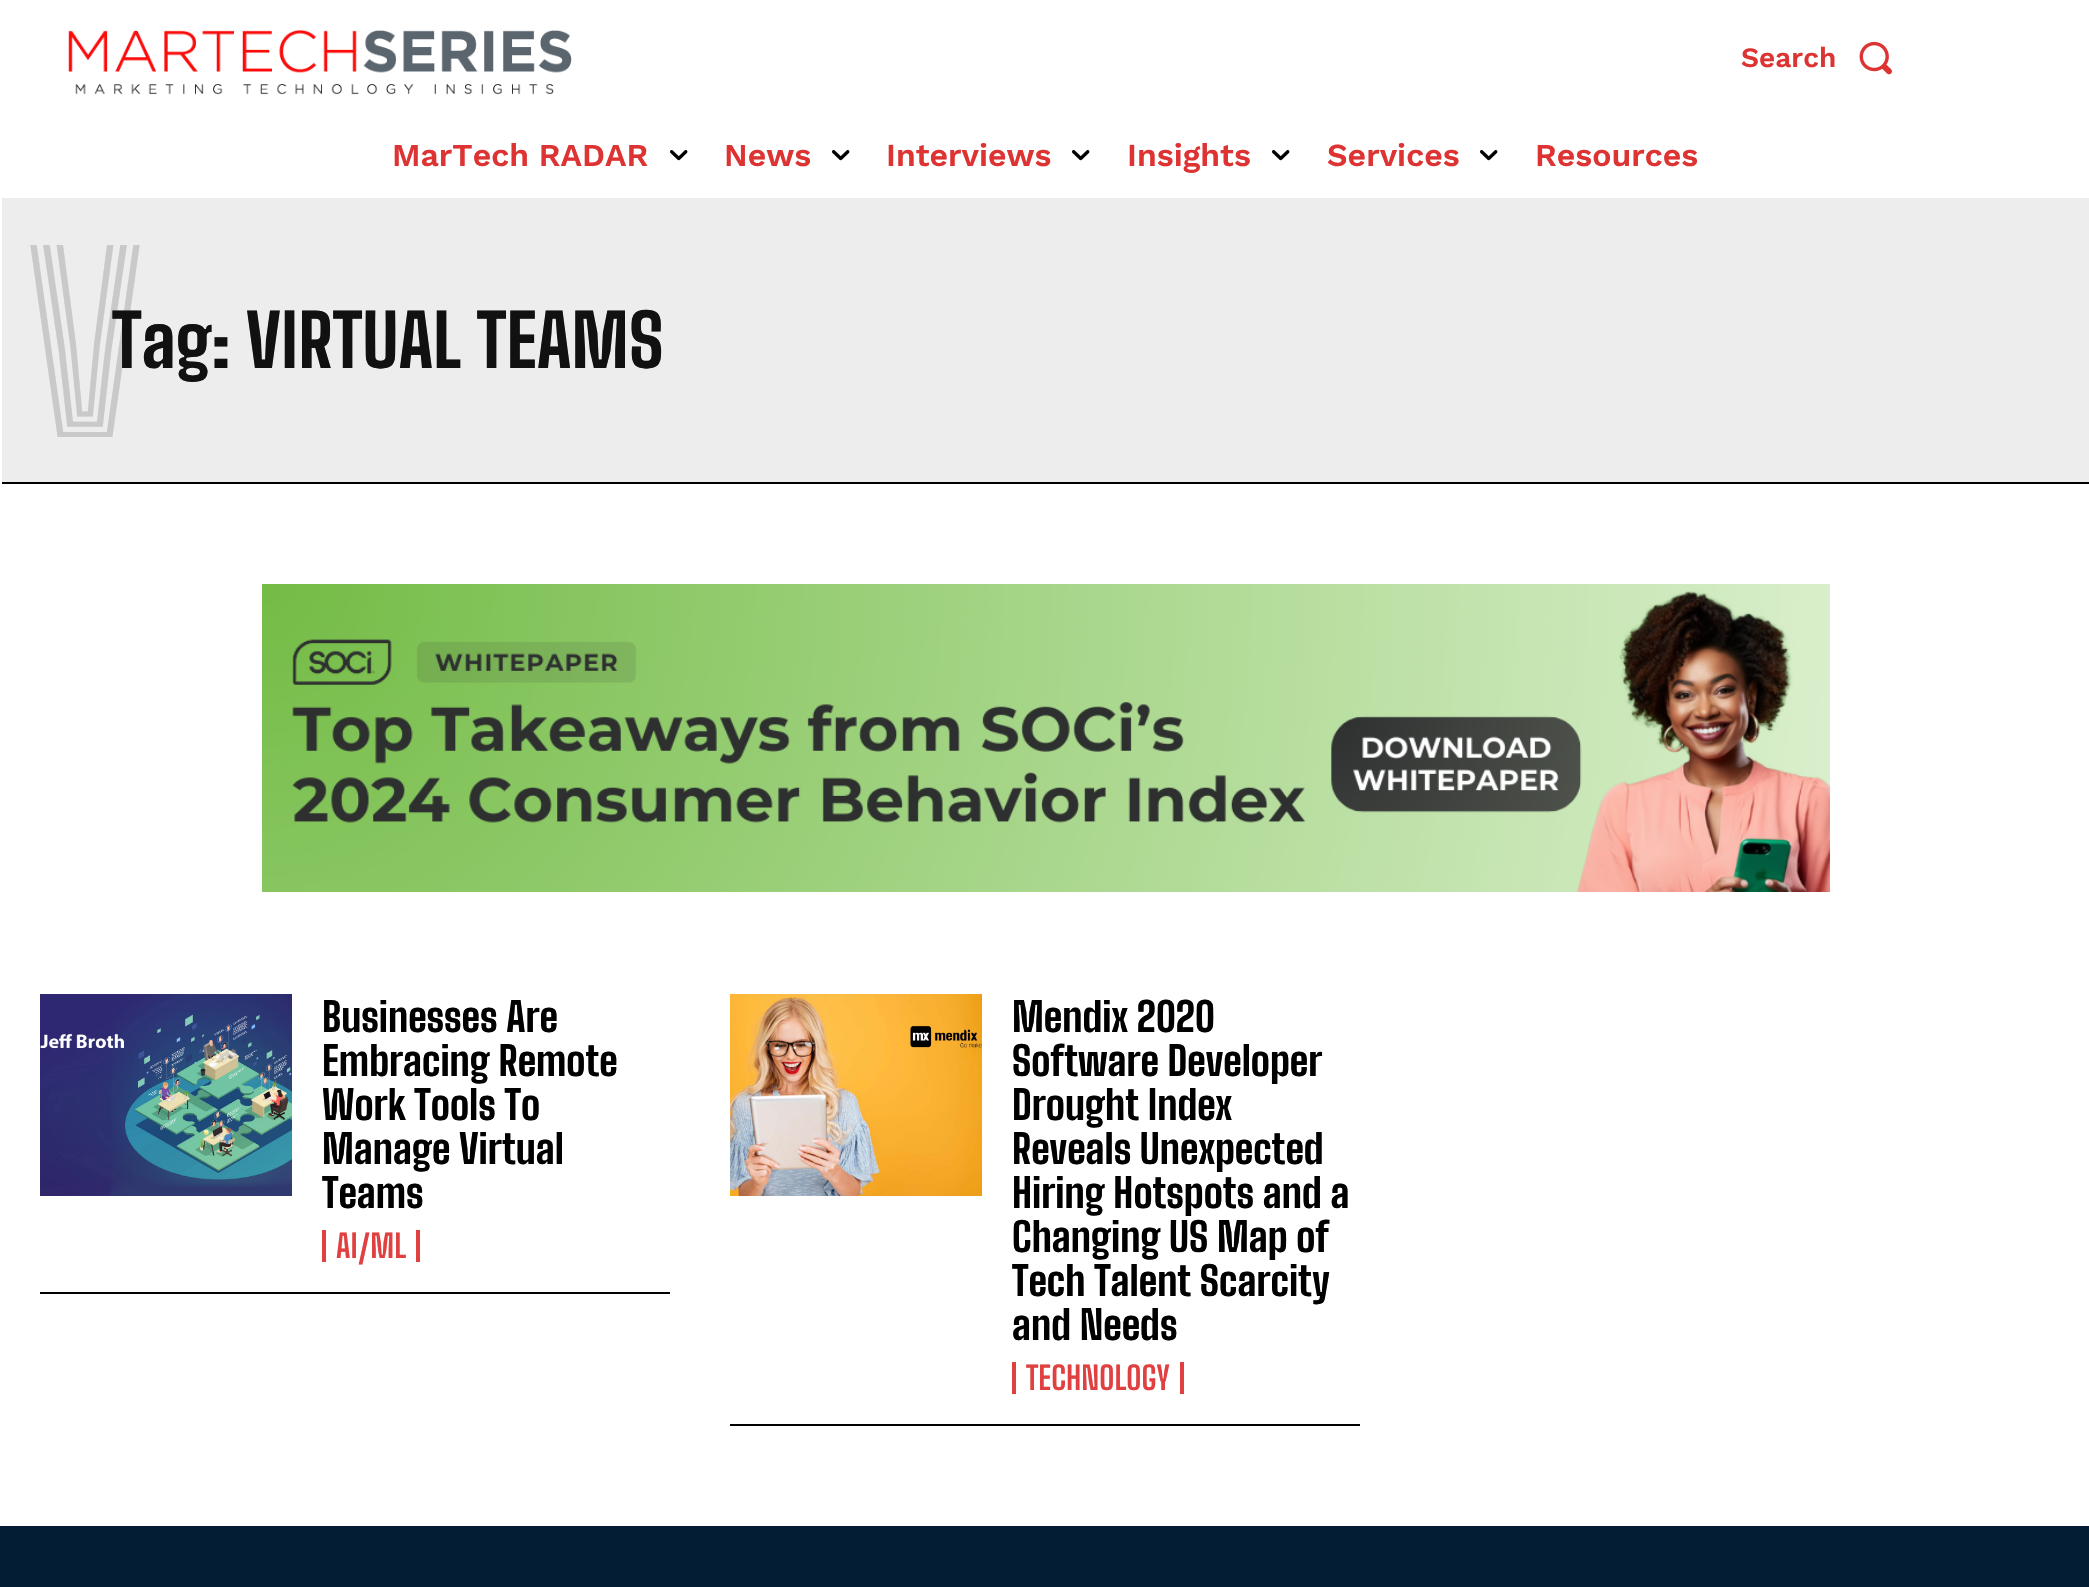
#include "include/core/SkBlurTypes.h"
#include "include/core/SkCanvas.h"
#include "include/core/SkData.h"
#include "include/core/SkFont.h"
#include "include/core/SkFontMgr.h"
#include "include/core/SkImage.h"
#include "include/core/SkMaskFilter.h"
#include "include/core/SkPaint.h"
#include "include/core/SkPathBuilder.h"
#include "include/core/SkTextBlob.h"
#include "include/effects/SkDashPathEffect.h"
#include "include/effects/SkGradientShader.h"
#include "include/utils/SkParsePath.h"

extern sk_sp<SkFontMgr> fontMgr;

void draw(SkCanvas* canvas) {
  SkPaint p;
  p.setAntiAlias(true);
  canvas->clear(SK_ColorWHITE);
  canvas->drawImageRect(SkImages::DeferredFromEncodedData(SkData::MakeFromFileName("images/1.png")), SkRect::MakeLTRB(68, 30, 572, 95), SkSamplingOptions());
  canvas->drawImageRect(SkImages::DeferredFromEncodedData(SkData::MakeFromFileName("images/2.png")), SkRect::MakeLTRB(1859, 41, 1892, 75), SkSamplingOptions());
  canvas->drawImageRect(SkImages::DeferredFromEncodedData(SkData::MakeFromFileName("images/3.png")), SkRect::MakeLTRB(670, 150, 688, 161), SkSamplingOptions());
  canvas->drawImageRect(SkImages::DeferredFromEncodedData(SkData::MakeFromFileName("images/3.png")), SkRect::MakeLTRB(832, 150, 850, 161), SkSamplingOptions());
  canvas->drawImageRect(SkImages::DeferredFromEncodedData(SkData::MakeFromFileName("images/3.png")), SkRect::MakeLTRB(1072, 150, 1090, 161), SkSamplingOptions());
  canvas->drawImageRect(SkImages::DeferredFromEncodedData(SkData::MakeFromFileName("images/3.png")), SkRect::MakeLTRB(1272, 150, 1290, 161), SkSamplingOptions());
  canvas->drawImageRect(SkImages::DeferredFromEncodedData(SkData::MakeFromFileName("images/3.png")), SkRect::MakeLTRB(1480, 150, 1498, 161), SkSamplingOptions());
  p.setColor(SkColorSetRGB(237, 237, 237));
  canvas->drawRect(SkRect::MakeLTRB(2, 198, 2089, 482), p);
  p.setColor(SK_ColorBLACK);
  canvas->drawRect(SkRect::MakeLTRB(2, 482, 2089, 484), p);
  canvas->drawImageRect(SkImages::DeferredFromEncodedData(SkData::MakeFromFileName("images/4.png")), SkRect::MakeLTRB(262, 584, 1830, 892), SkSamplingOptions());
  canvas->drawRect(SkRect::MakeLTRB(40, 1292, 670, 1294), p);
  canvas->drawImageRect(SkImages::DeferredFromEncodedData(SkData::MakeFromFileName("images/5.png")), SkRect::MakeLTRB(40, 994, 292, 1196), SkSamplingOptions());
  p.setColor(SkColorSetRGB(224, 64, 64));
  canvas->drawRect(SkRect::MakeLTRB(416, 1230, 420, 1262), p);
  canvas->drawRect(SkRect::MakeLTRB(322, 1230, 326, 1262), p);
  p.setColor(SK_ColorBLACK);
  canvas->drawRect(SkRect::MakeLTRB(730, 1424, 1360, 1426), p);
  canvas->drawImageRect(SkImages::DeferredFromEncodedData(SkData::MakeFromFileName("images/6.png")), SkRect::MakeLTRB(730, 994, 982, 1196), SkSamplingOptions());
  p.setColor(SkColorSetRGB(224, 64, 64));
  canvas->drawRect(SkRect::MakeLTRB(1180, 1362, 1184, 1394), p);
  canvas->drawRect(SkRect::MakeLTRB(1012, 1362, 1016, 1394), p);
  p.setColor(SkColorSetRGB(3, 29, 53));
  canvas->drawRect(SkRect::MakeLTRB(0, 1526, 2089, 1587), p);
  SkFont font1(fontMgr->matchFamilyStyle("Work Sans", SkFontStyle(600, SkFontStyle::kNormal_Width, SkFontStyle::kUpright_Slant)), 28);
  font1.setSubpixel(true);
  p.setColor(SkColorSetRGB(221, 51, 51));
  canvas->drawString("Search", 1741, 67, font1, p);
  SkFont font2(fontMgr->matchFamilyStyle("Work Sans", SkFontStyle(600, SkFontStyle::kNormal_Width, SkFontStyle::kUpright_Slant)), 32);
  font2.setSubpixel(true);
  canvas->drawString("MarTech RADAR", 392, 166, font2, p);
  canvas->drawString("News", 724, 166, font2, p);
  canvas->drawString("Interviews", 886, 166, font2, p);
  canvas->drawString("Insights", 1127, 166, font2, p);
  canvas->drawString("Services", 1327, 166, font2, p);
  canvas->drawString("Resources", 1535, 166, font2, p);
  SkFont font3(fontMgr->matchFamilyStyle("Big Shoulders Inline Text", SkFontStyle(800, SkFontStyle::kNormal_Width, SkFontStyle::kUpright_Slant)), 240);
  font3.setSubpixel(true);
  p.setColor(SkColorSetRGB(201, 201, 201));
  canvas->drawString("V", 26, 437, font3, p);
  SkFont font4(fontMgr->matchFamilyStyle("Big Shoulders Text", SkFontStyle(800, SkFontStyle::kNormal_Width, SkFontStyle::kUpright_Slant)), 72);
  font4.setSubpixel(true);
  p.setColor(SkColorSetRGB(17, 17, 17));
  canvas->drawString("Tag: VIRTUAL TEAMS", 112, 368, font4, p);
  SkFont font5(fontMgr->matchFamilyStyle("Big Shoulders Text", SkFontStyle(800, SkFontStyle::kNormal_Width, SkFontStyle::kUpright_Slant)), 40);
  font5.setSubpixel(true);
  p.setColor(SK_ColorBLACK);
  canvas->drawString("Businesses Are", 322, 1032, font5, p);
  canvas->drawString("Embracing Remote", 322, 1076, font5, p);
  canvas->drawString("Work Tools To", 322, 1120, font5, p);
  canvas->drawString("Manage Virtual", 322, 1164, font5, p);
  canvas->drawString("Teams", 322, 1208, font5, p);
  SkFont font6(fontMgr->matchFamilyStyle("Big Shoulders Text", SkFontStyle::Bold()), 32);
  font6.setSubpixel(true);
  p.setColor(SkColorSetRGB(224, 64, 64));
  canvas->drawString("AI/ML", 336, 1258, font6, p);
  p.setColor(SK_ColorBLACK);
  canvas->drawString("Mendix 2020", 1012, 1032, font5, p);
  canvas->drawString("Software Developer", 1012, 1076, font5, p);
  canvas->drawString("Drought Index", 1012, 1120, font5, p);
  canvas->drawString("Reveals Unexpected", 1012, 1164, font5, p);
  canvas->drawString("Hiring Hotspots and a", 1012, 1208, font5, p);
  canvas->drawString("Changing US Map of", 1012, 1252, font5, p);
  canvas->drawString("Tech Talent Scarcity", 1012, 1296, font5, p);
  canvas->drawString("and Needs", 1012, 1340, font5, p);
  p.setColor(SkColorSetRGB(224, 64, 64));
  canvas->drawString("TECHNOLOGY", 1026, 1390, font6, p);
}
